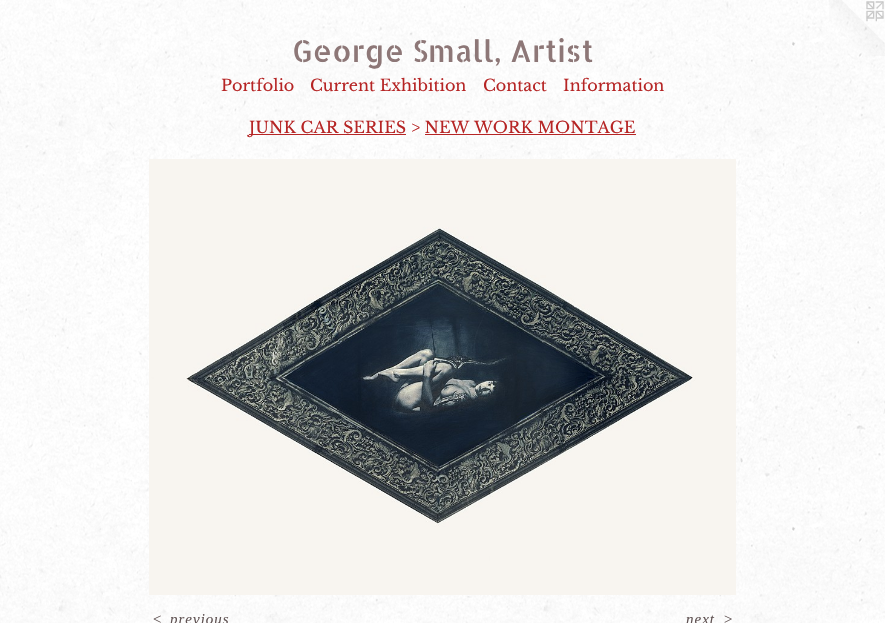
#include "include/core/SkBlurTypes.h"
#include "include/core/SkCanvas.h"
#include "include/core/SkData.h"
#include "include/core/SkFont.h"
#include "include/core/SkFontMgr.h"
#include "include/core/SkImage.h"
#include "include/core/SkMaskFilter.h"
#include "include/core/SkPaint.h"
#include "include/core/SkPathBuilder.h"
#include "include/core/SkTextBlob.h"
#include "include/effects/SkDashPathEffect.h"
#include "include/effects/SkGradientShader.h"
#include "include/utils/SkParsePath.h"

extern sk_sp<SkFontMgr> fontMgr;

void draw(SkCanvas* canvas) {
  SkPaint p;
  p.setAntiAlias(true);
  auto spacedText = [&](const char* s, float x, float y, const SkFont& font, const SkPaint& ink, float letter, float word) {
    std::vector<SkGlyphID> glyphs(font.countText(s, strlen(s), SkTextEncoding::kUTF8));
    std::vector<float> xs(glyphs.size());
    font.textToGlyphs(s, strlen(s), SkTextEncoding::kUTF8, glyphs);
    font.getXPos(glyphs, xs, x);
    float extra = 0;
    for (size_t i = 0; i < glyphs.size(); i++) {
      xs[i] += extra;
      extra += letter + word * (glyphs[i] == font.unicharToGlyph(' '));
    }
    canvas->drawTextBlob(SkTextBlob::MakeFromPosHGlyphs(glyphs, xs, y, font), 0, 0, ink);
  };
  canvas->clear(SK_ColorWHITE);
  canvas->drawImageRect(SkImages::DeferredFromEncodedData(SkData::MakeFromFileName("images/1.png")), SkRect::MakeLTRB(0, 0, 885, 623), SkSamplingOptions());
  canvas->drawImageRect(SkImages::DeferredFromEncodedData(SkData::MakeFromFileName("images/2.png")), SkRect::MakeLTRB(829, 0, 885, 56), SkSamplingOptions());
  p.setColor(SkColorSetRGB(182, 37, 37));
  canvas->drawRect(SkRect::MakeLTRB(249, 134, 406, 135), p);
  canvas->drawRect(SkRect::MakeLTRB(425, 134, 636, 135), p);
  canvas->drawImageRect(SkImages::DeferredFromEncodedData(SkData::MakeFromFileName("images/3.png")), SkRect::MakeLTRB(149, 159, 736, 595), SkSamplingOptions());
  SkFont font1(fontMgr->matchFamilyStyle("Allerta Stencil", SkFontStyle::Normal()), 30);
  font1.setSubpixel(true);
  p.setColor(SkColorSetRGB(141, 119, 119));
  canvas->drawString("George Small, Artist", 292, 62, font1, p);
  SkFont font2(fontMgr->matchFamilyStyle("Libre Baskerville", SkFontStyle::Normal()), 16);
  font2.setSubpixel(true);
  p.setColor(SkColorSetRGB(182, 37, 37));
  canvas->drawString("Portfolio", 221, 91, font2, p);
  canvas->drawString("Current Exhibition", 310, 91, font2, p);
  canvas->drawString("Contact", 483, 91, font2, p);
  canvas->drawString("Information", 563, 91, font2, p);
  canvas->drawString("JUNK CAR SERIES > NEW WORK MONTAGE", 249, 133, font2, p);
  SkFont font3(fontMgr->matchFamilyStyle("Liberation Serif", SkFontStyle::Italic()), 15);
  font3.setSubpixel(true);
  p.setColor(SkColorSetRGB(98, 85, 85));
  spacedText("<", 152, 624, font3, p, 1, 0);
  spacedText("previous", 170, 624, font3, p, 1, 0);
  spacedText("next", 686, 624, font3, p, 1, 0);
  spacedText(">", 723, 624, font3, p, 1, 0);
}
